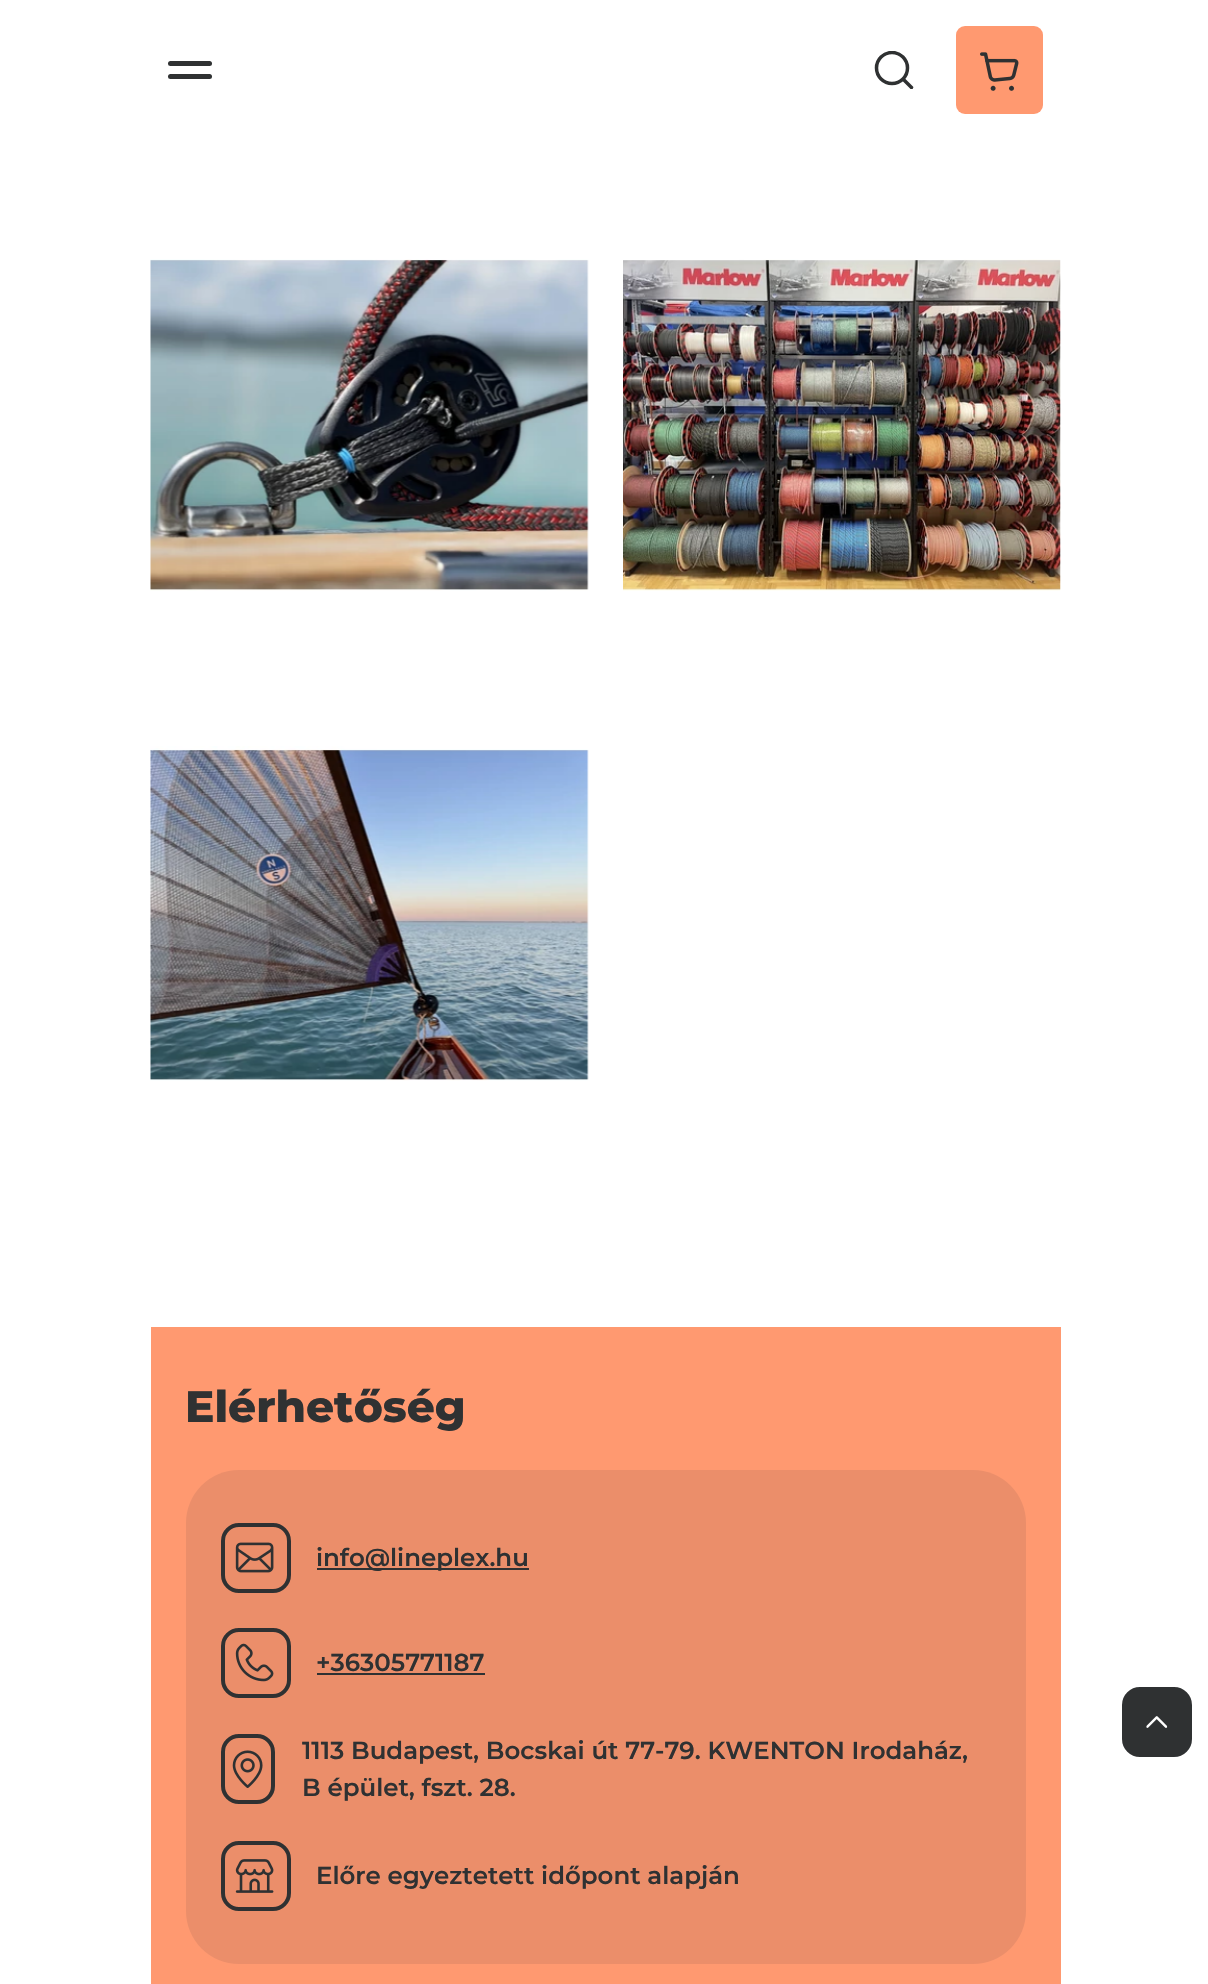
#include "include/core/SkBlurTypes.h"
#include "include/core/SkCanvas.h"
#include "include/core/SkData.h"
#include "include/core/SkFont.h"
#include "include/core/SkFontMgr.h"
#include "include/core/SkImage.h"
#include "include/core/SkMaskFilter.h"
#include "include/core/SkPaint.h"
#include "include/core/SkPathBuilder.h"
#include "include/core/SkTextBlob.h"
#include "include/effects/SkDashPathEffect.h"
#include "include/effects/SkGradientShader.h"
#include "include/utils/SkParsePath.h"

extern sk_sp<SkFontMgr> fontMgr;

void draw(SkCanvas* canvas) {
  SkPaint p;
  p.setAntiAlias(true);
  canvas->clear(SK_ColorWHITE);
  p.setColor(SkColorSetRGB(47, 49, 50));
  canvas->drawRoundRect(SkRect::MakeLTRB(168, 61, 212, 66), 2.5f, 2.5f, p);
  canvas->drawRoundRect(SkRect::MakeLTRB(168, 74, 212, 79), 2.5f, 2.5f, p);
  canvas->save();
  canvas->clipRect(SkRect::MakeLTRB(873, 51, 914, 89));
  p.setStyle(SkPaint::kStroke_Style);
  p.setStrokeWidth(3.5f);
  p.setStrokeCap(SkPaint::kRound_Cap);
  p.setStrokeJoin(SkPaint::kRound_Join);
  canvas->drawPath(SkPathBuilder().moveTo(911.5f, 87.5f).lineTo(903, 79).moveTo(907.5f, 68).cubicTo(907.5f, 76.5f, 900.5f, 83.5f, 892, 83.5f).cubicTo(883.5f, 83.5f, 876.5f, 76.5f, 876.5f, 68).cubicTo(876.5f, 59.5f, 883.5f, 52.5f, 892, 52.5f).cubicTo(900.5f, 52.5f, 907.5f, 59.5f, 907.5f, 68).close().detach(), p);
  canvas->restore();
  p.setStyle(SkPaint::kFill_Style);
  p.setColor(SkColorSetRGB(255, 153, 112));
  canvas->drawRoundRect(SkRect::MakeLTRB(956, 26, 1043, 114), 9, 9, p);
  canvas->drawImageRect(SkImages::DeferredFromEncodedData(SkData::MakeFromFileName("images/1.png")), SkRect::MakeLTRB(980, 52, 1019, 91), SkSamplingOptions());
  canvas->drawImageRect(SkImages::DeferredFromEncodedData(SkData::MakeFromFileName("images/2.png")), SkRect::MakeLTRB(150, 259, 589, 591), SkSamplingOptions());
  canvas->drawImageRect(SkImages::DeferredFromEncodedData(SkData::MakeFromFileName("images/3.png")), SkRect::MakeLTRB(623, 259, 1061, 591), SkSamplingOptions());
  canvas->drawImageRect(SkImages::DeferredFromEncodedData(SkData::MakeFromFileName("images/4.png")), SkRect::MakeLTRB(150, 746, 589, 1081), SkSamplingOptions());
  canvas->drawRect(SkRect::MakeLTRB(151, 1327, 1061, 1984), p);
  p.setColor(SkColorSetRGB(235, 142, 106));
  canvas->drawRoundRect(SkRect::MakeLTRB(186, 1470, 1026, 1964), 53, 53, p);
  p.setStyle(SkPaint::kStroke_Style);
  p.setStrokeWidth(4);
  p.setStrokeCap(SkPaint::kButt_Cap);
  p.setStrokeJoin(SkPaint::kMiter_Join);
  p.setColor(SkColorSetRGB(47, 49, 50));
  canvas->drawRoundRect(SkRect::MakeLTRB(223, 1525, 289, 1591), 16, 16, p);
  canvas->drawImageRect(SkImages::DeferredFromEncodedData(SkData::MakeFromFileName("images/5.png")), SkRect::MakeLTRB(235, 1542, 274, 1573), SkSamplingOptions());
  p.setStyle(SkPaint::kFill_Style);
  canvas->drawRect(SkRect::MakeLTRB(317, 1568, 529, 1570), p);
  p.setStyle(SkPaint::kStroke_Style);
  canvas->drawRoundRect(SkRect::MakeLTRB(223, 1630, 289, 1696), 16, 16, p);
  canvas->drawImageRect(SkImages::DeferredFromEncodedData(SkData::MakeFromFileName("images/6.png")), SkRect::MakeLTRB(235, 1643, 274, 1682), SkSamplingOptions());
  p.setStyle(SkPaint::kFill_Style);
  canvas->drawRect(SkRect::MakeLTRB(317, 1673, 485, 1675), p);
  p.setStyle(SkPaint::kStroke_Style);
  canvas->drawRoundRect(SkRect::MakeLTRB(223, 1736, 273, 1802), 16, 16, p);
  canvas->drawImageRect(SkImages::DeferredFromEncodedData(SkData::MakeFromFileName("images/7.png")), SkRect::MakeLTRB(232, 1750, 263, 1788), SkSamplingOptions());
  canvas->drawRoundRect(SkRect::MakeLTRB(223, 1843, 289, 1909), 16, 16, p);
  canvas->drawImageRect(SkImages::DeferredFromEncodedData(SkData::MakeFromFileName("images/8.png")), SkRect::MakeLTRB(235, 1859, 274, 1893), SkSamplingOptions());
  p.setStyle(SkPaint::kFill_Style);
  canvas->drawRoundRect(SkRect::MakeLTRB(1124, 1689, 1190, 1755), 16, 16, p);
  p.setStyle(SkPaint::kStroke_Style);
  canvas->drawRoundRect(SkRect::MakeLTRB(1124, 1689, 1190, 1755), 16, 16, p);
  canvas->drawImageRect(SkImages::DeferredFromEncodedData(SkData::MakeFromFileName("images/9.png")), SkRect::MakeLTRB(1146, 1716, 1168, 1728), SkSamplingOptions());
  SkFont font1(fontMgr->matchFamilyStyle("Montserrat", SkFontStyle(800, SkFontStyle::kNormal_Width, SkFontStyle::kUpright_Slant)), 43.75f);
  font1.setSubpixel(true);
  p.setStyle(SkPaint::kFill_Style);
  canvas->drawString("Elérhetőség", 185, 1422, font1, p);
  SkFont font2(fontMgr->matchFamilyStyle("Montserrat", SkFontStyle(600, SkFontStyle::kNormal_Width, SkFontStyle::kUpright_Slant)), 24.5f);
  font2.setSubpixel(true);
  canvas->drawString("info@lineplex.hu", 316, 1566, font2, p);
  canvas->drawString("+36305771187", 316, 1671, font2, p);
  canvas->drawString("1113 Budapest, Bocskai út 77-79. KWENTON Irodaház,", 302, 1759, font2, p);
  canvas->drawString("B épület, fszt. 28.", 302, 1796, font2, p);
  canvas->drawString("Előre egyeztetett időpont alapján", 316, 1884, font2, p);
}
